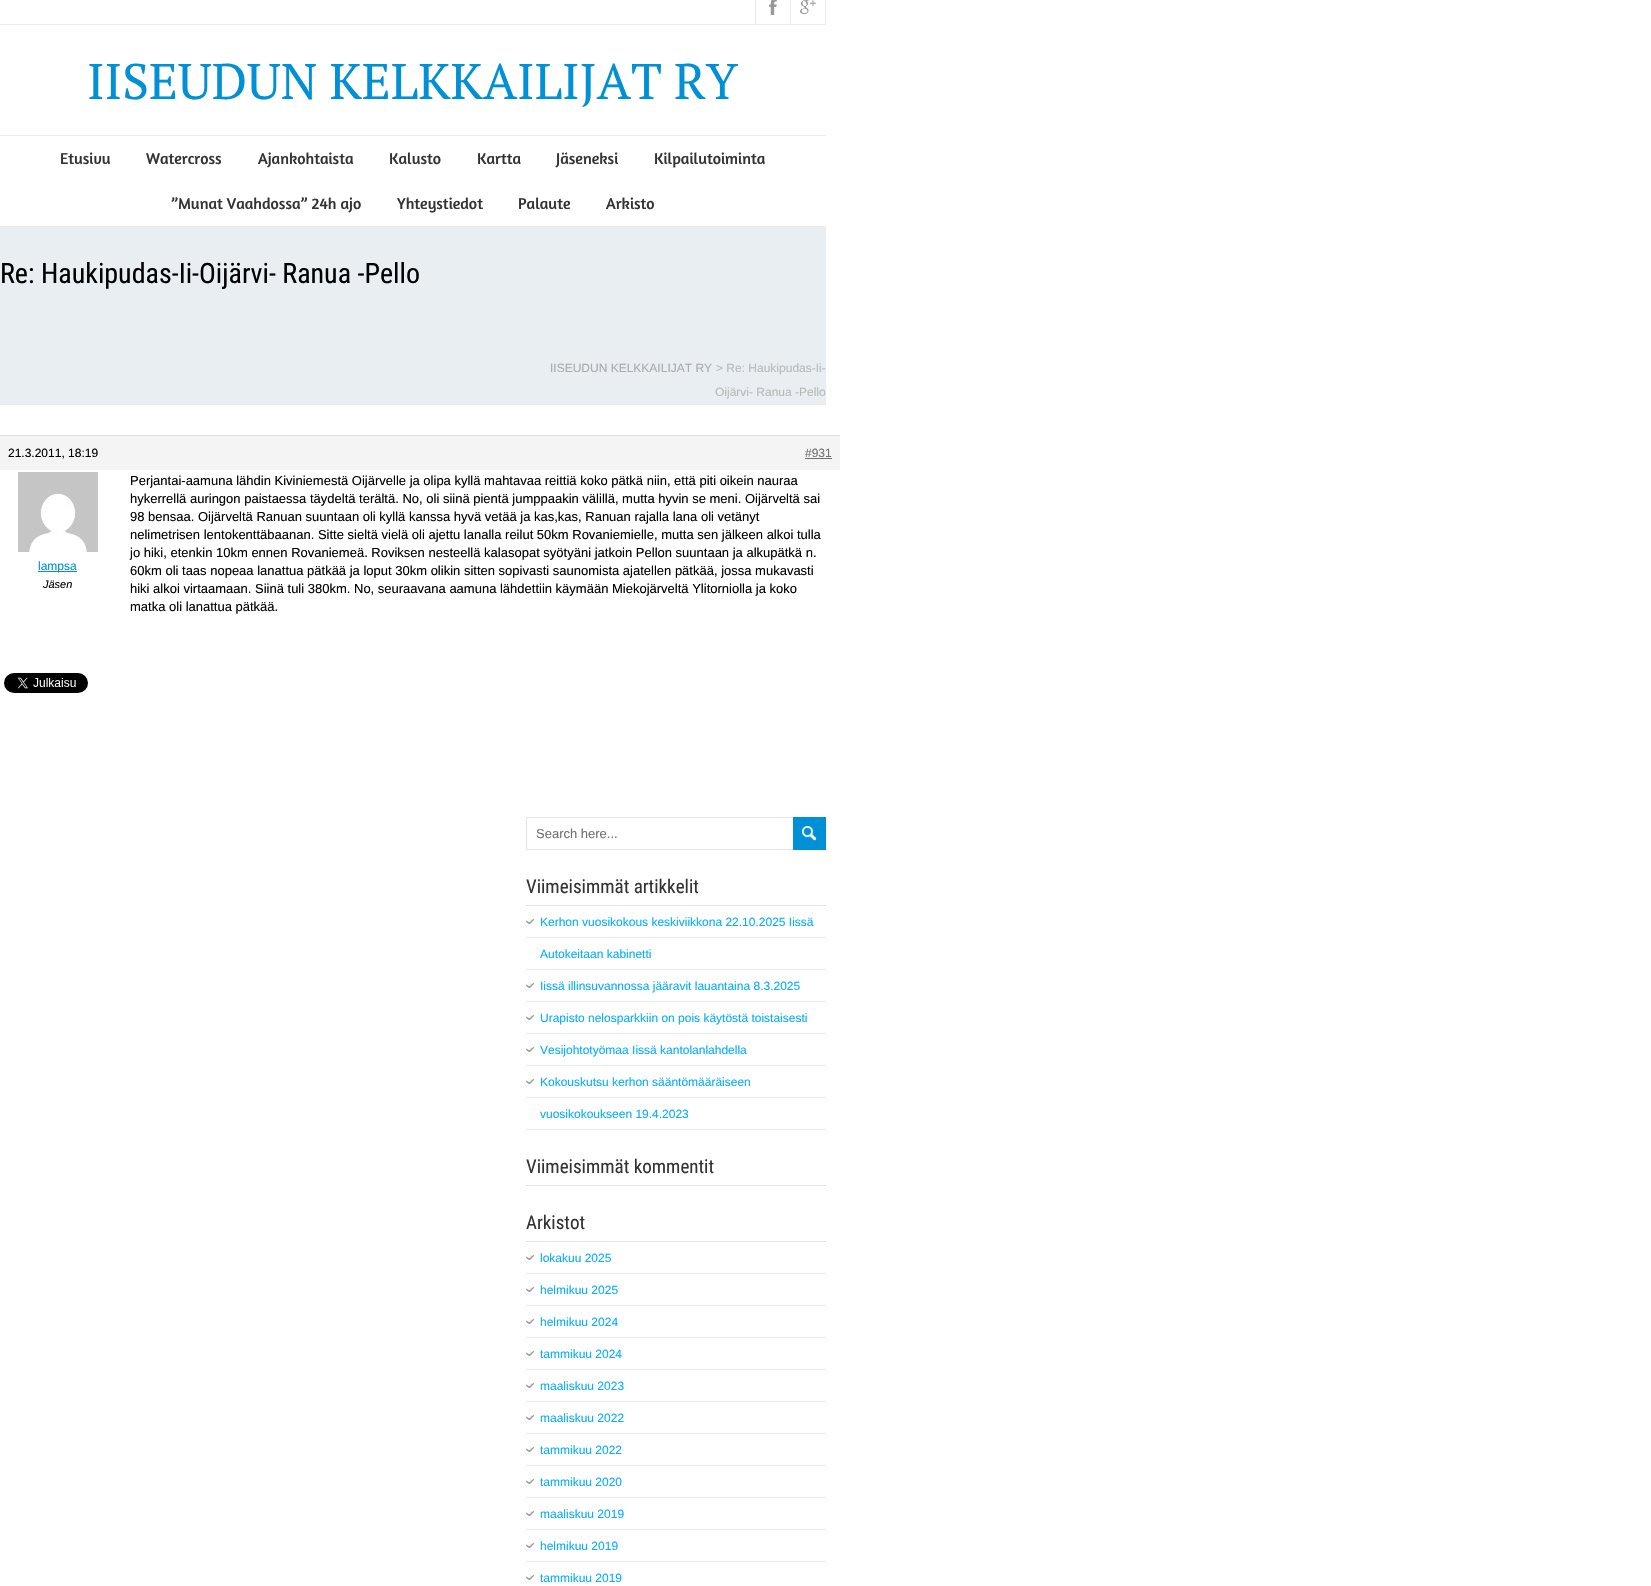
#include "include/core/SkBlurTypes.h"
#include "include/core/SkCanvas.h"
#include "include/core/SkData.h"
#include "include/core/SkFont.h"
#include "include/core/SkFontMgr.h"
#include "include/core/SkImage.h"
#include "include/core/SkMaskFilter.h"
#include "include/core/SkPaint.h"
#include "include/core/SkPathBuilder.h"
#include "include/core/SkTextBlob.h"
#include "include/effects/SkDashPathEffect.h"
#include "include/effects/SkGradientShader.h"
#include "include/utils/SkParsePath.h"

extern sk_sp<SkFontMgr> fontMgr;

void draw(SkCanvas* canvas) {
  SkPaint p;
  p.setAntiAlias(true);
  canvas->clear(SK_ColorWHITE);
  p.setColor(SkColorSetRGB(235, 235, 235));
  canvas->drawRect(SkRect::MakeLTRB(0, 24, 826, 25), p);
  canvas->drawRect(SkRect::MakeLTRB(755, 0, 756, 24), p);
  canvas->drawImageRect(SkImages::DeferredFromEncodedData(SkData::MakeFromFileName("images/1.png")), SkRect::MakeLTRB(769, 0, 777, 15), SkSamplingOptions());
  canvas->drawRect(SkRect::MakeLTRB(790, 0, 791, 24), p);
  canvas->drawImageRect(SkImages::DeferredFromEncodedData(SkData::MakeFromFileName("images/2.png")), SkRect::MakeLTRB(800, 0, 816, 14), SkSamplingOptions());
  canvas->drawRect(SkRect::MakeLTRB(825, 0, 826, 24), p);
  canvas->drawRect(SkRect::MakeLTRB(0, 135, 826, 136), p);
  canvas->drawRect(SkRect::MakeLTRB(0, 226, 826, 227), p);
  p.setColor(SkColorSetRGB(232, 238, 241));
  canvas->drawRect(SkRect::MakeLTRB(0, 227, 826, 404), p);
  p.setColor(SkColorSetRGB(235, 235, 235));
  canvas->drawRect(SkRect::MakeLTRB(0, 404, 826, 405), p);
  p.setColor(SkColorSetRGB(244, 244, 244));
  canvas->drawRect(SkRect::MakeLTRB(0, 436, 840, 470), p);
  p.setColor(SkColorSetRGB(221, 221, 221));
  canvas->drawRect(SkRect::MakeLTRB(0, 435, 840, 436), p);
  p.setColor(SkColorSetRGB(112, 112, 112));
  canvas->drawRect(SkRect::MakeLTRB(805, 458, 832, 459), p);
  canvas->drawImageRect(SkImages::DeferredFromEncodedData(SkData::MakeFromFileName("images/3.png")), SkRect::MakeLTRB(18, 472, 98, 552), SkSamplingOptions());
  p.setColor(SkColorSetRGB(0, 144, 213));
  canvas->drawRect(SkRect::MakeLTRB(38, 571, 77, 572), p);
  canvas->drawImageRect(SkImages::DeferredFromEncodedData(SkData::MakeFromFileName("images/4.png")), SkRect::MakeLTRB(4, 673, 88, 693), SkSamplingOptions());
  p.setStyle(SkPaint::kStroke_Style);
  p.setStrokeWidth(1);
  p.setColor(SkColorSetRGB(227, 227, 227));
  canvas->drawRect(SkRect::MakeLTRB(526.5f, 817.5f, 824.5f, 849.5f), p);
  p.setStyle(SkPaint::kFill_Style);
  p.setColor(SkColorSetRGB(0, 144, 213));
  canvas->drawRect(SkRect::MakeLTRB(793, 817, 826, 850), p);
  canvas->drawImageRect(SkImages::DeferredFromEncodedData(SkData::MakeFromFileName("images/5.png")), SkRect::MakeLTRB(802, 826, 817, 841), SkSamplingOptions());
  p.setColor(SkColorSetRGB(227, 227, 227));
  canvas->drawRect(SkRect::MakeLTRB(526, 905, 826, 906), p);
  canvas->drawImageRect(SkImages::DeferredFromEncodedData(SkData::MakeFromFileName("images/6.png")), SkRect::MakeLTRB(526, 937, 826, 1130), SkSamplingOptions());
  canvas->drawImageRect(SkImages::DeferredFromEncodedData(SkData::MakeFromFileName("images/7.png")), SkRect::MakeLTRB(526, 919, 534, 924), SkSamplingOptions());
  canvas->drawImageRect(SkImages::DeferredFromEncodedData(SkData::MakeFromFileName("images/7.png")), SkRect::MakeLTRB(526, 983, 534, 988), SkSamplingOptions());
  canvas->drawImageRect(SkImages::DeferredFromEncodedData(SkData::MakeFromFileName("images/7.png")), SkRect::MakeLTRB(526, 1015, 534, 1020), SkSamplingOptions());
  canvas->drawImageRect(SkImages::DeferredFromEncodedData(SkData::MakeFromFileName("images/7.png")), SkRect::MakeLTRB(526, 1047, 534, 1052), SkSamplingOptions());
  canvas->drawImageRect(SkImages::DeferredFromEncodedData(SkData::MakeFromFileName("images/7.png")), SkRect::MakeLTRB(526, 1079, 534, 1084), SkSamplingOptions());
  canvas->drawRect(SkRect::MakeLTRB(526, 1185, 826, 1186), p);
  canvas->drawRect(SkRect::MakeLTRB(526, 1241, 826, 1242), p);
  canvas->drawImageRect(SkImages::DeferredFromEncodedData(SkData::MakeFromFileName("images/8.png")), SkRect::MakeLTRB(526, 1273, 826, 1562), SkSamplingOptions());
  canvas->drawImageRect(SkImages::DeferredFromEncodedData(SkData::MakeFromFileName("images/7.png")), SkRect::MakeLTRB(526, 1255, 534, 1260), SkSamplingOptions());
  canvas->drawImageRect(SkImages::DeferredFromEncodedData(SkData::MakeFromFileName("images/7.png")), SkRect::MakeLTRB(526, 1287, 534, 1292), SkSamplingOptions());
  canvas->drawImageRect(SkImages::DeferredFromEncodedData(SkData::MakeFromFileName("images/7.png")), SkRect::MakeLTRB(526, 1319, 534, 1324), SkSamplingOptions());
  canvas->drawImageRect(SkImages::DeferredFromEncodedData(SkData::MakeFromFileName("images/7.png")), SkRect::MakeLTRB(526, 1351, 534, 1356), SkSamplingOptions());
  canvas->drawImageRect(SkImages::DeferredFromEncodedData(SkData::MakeFromFileName("images/7.png")), SkRect::MakeLTRB(526, 1383, 534, 1388), SkSamplingOptions());
  canvas->drawImageRect(SkImages::DeferredFromEncodedData(SkData::MakeFromFileName("images/7.png")), SkRect::MakeLTRB(526, 1415, 534, 1420), SkSamplingOptions());
  canvas->drawImageRect(SkImages::DeferredFromEncodedData(SkData::MakeFromFileName("images/7.png")), SkRect::MakeLTRB(526, 1447, 534, 1452), SkSamplingOptions());
  canvas->drawImageRect(SkImages::DeferredFromEncodedData(SkData::MakeFromFileName("images/7.png")), SkRect::MakeLTRB(526, 1479, 534, 1484), SkSamplingOptions());
  canvas->drawImageRect(SkImages::DeferredFromEncodedData(SkData::MakeFromFileName("images/7.png")), SkRect::MakeLTRB(526, 1511, 534, 1516), SkSamplingOptions());
  canvas->drawImageRect(SkImages::DeferredFromEncodedData(SkData::MakeFromFileName("images/7.png")), SkRect::MakeLTRB(526, 1543, 534, 1548), SkSamplingOptions());
  canvas->drawImageRect(SkImages::DeferredFromEncodedData(SkData::MakeFromFileName("images/7.png")), SkRect::MakeLTRB(526, 1575, 534, 1580), SkSamplingOptions());
  SkFont font1(fontMgr->matchFamilyStyle("PT Serif", SkFontStyle::Normal()), 50);
  font1.setSubpixel(true);
  p.setColor(SkColorSetRGB(0, 144, 213));
  canvas->drawString("IISEUDUN KELKKAILIJAT RY", 87, 99, font1, p);
  SkFont font2(fontMgr->matchFamilyStyle("Amaranth", SkFontStyle::Normal()), 16);
  font2.setSubpixel(true);
  p.setColor(SkColorSetRGB(51, 51, 51));
  canvas->drawString("Etusivu", 60, 164, font2, p);
  canvas->drawString("Watercross", 146, 164, font2, p);
  canvas->drawString("Ajankohtaista", 258, 164, font2, p);
  canvas->drawString("Kalusto", 389, 164, font2, p);
  canvas->drawString("Kartta", 477, 164, font2, p);
  canvas->drawString("Jäseneksi", 556, 164, font2, p);
  canvas->drawString("Kilpailutoiminta", 654, 164, font2, p);
  canvas->drawString("”Munat Vaahdossa” 24h ajo", 171, 209, font2, p);
  canvas->drawString("Yhteystiedot", 397, 209, font2, p);
  canvas->drawString("Palaute", 518, 209, font2, p);
  canvas->drawString("Arkisto", 606, 209, font2, p);
  SkFont font3(fontMgr->matchFamilyStyle("Roboto Condensed", SkFontStyle::Normal()), 28);
  font3.setSubpixel(true);
  p.setColor(SK_ColorBLACK);
  canvas->drawString("Re: Haukipudas-Ii-Oijärvi- Ranua -Pello", 0, 283, font3, p);
  SkFont font4(fontMgr->matchFamilyStyle("Liberation Sans", SkFontStyle::Normal()), 12);
  font4.setSubpixel(true);
  p.setColor(SkColorSetRGB(170, 170, 170));
  canvas->drawString("IISEUDUN KELKKAILIJAT RY", 550, 372, font4, p);
  p.setColor(SkColorSetRGB(184, 184, 184));
  canvas->drawString("> Re: Haukipudas-Ii-", 716, 372, font4, p);
  canvas->drawString("Oijärvi- Ranua -Pello", 715, 396, font4, p);
  p.setColor(SK_ColorBLACK);
  canvas->drawString("21.3.2011, 18:19", 8, 457, font4, p);
  p.setColor(SkColorSetRGB(112, 112, 112));
  canvas->drawString("#931", 805, 457, font4, p);
  p.setColor(SkColorSetRGB(0, 144, 213));
  canvas->drawString("lampsa", 38, 570, font4, p);
  SkFont font5(fontMgr->matchFamilyStyle("Liberation Sans", SkFontStyle::Italic()), 11);
  font5.setSubpixel(true);
  p.setColor(SK_ColorBLACK);
  canvas->drawString("Jäsen", 43, 588, font5, p);
  SkFont font6(fontMgr->matchFamilyStyle("Liberation Sans", SkFontStyle::Normal()), 13);
  font6.setSubpixel(true);
  canvas->drawString("Perjantai-aamuna lähdin Kiviniemestä Oijärvelle ja olipa kyllä mahtavaa reittiä koko pätkä niin, että piti oikein nauraa", 130, 485, font6, p);
  canvas->drawString("hykerrellä auringon paistaessa täydeltä terältä. No, oli siinä pientä jumppaakin välillä, mutta hyvin se meni. Oijärveltä sai", 130, 503, font6, p);
  canvas->drawString("98 bensaa. Oijärveltä Ranuan suuntaan oli kyllä kanssa hyvä vetää ja kas,kas, Ranuan rajalla lana oli vetänyt", 130, 521, font6, p);
  canvas->drawString("nelimetrisen lentokenttäbaanan. Sitte sieltä vielä oli ajettu lanalla reilut 50km Rovaniemielle, mutta sen jälkeen alkoi tulla", 130, 539, font6, p);
  canvas->drawString("jo hiki, etenkin 10km ennen Rovaniemeä. Roviksen nesteellä kalasopat syötyäni jatkoin Pellon suuntaan ja alkupätkä n.", 130, 557, font6, p);
  canvas->drawString("60km oli taas nopeaa lanattua pätkää ja loput 30km olikin sitten sopivasti saunomista ajatellen pätkää, jossa mukavasti", 130, 575, font6, p);
  canvas->drawString("hiki alkoi virtaamaan. Siinä tuli 380km. No, seuraavana aamuna lähdettiin käymään Miekojärveltä Ylitorniolla ja koko", 130, 593, font6, p);
  canvas->drawString("matka oli lanattua pätkää.", 130, 611, font6, p);
  p.setColor(SkColorSetRGB(112, 112, 112));
  canvas->drawString("Search here...", 536, 838, font6, p);
  SkFont font7(fontMgr->matchFamilyStyle("Roboto Condensed", SkFontStyle::Normal()), 19);
  font7.setSubpixel(true);
  p.setColor(SkColorSetRGB(51, 51, 51));
  canvas->drawString("Viimeisimmät artikkelit", 526, 893, font7, p);
  p.setColor(SkColorSetRGB(6, 174, 255));
  canvas->drawString("Kerhon vuosikokous keskiviikkona 22.10.2025 Iissä", 540, 926, font4, p);
  canvas->drawString("Autokeitaan kabinetti", 540, 958, font4, p);
  canvas->drawString("Iissä illinsuvannossa jääravit lauantaina 8.3.2025", 540, 990, font4, p);
  canvas->drawString("Urapisto nelosparkkiin on pois käytöstä toistaisesti", 540, 1022, font4, p);
  canvas->drawString("Vesijohtotyömaa Iissä kantolanlahdella", 540, 1054, font4, p);
  canvas->drawString("Kokouskutsu kerhon sääntömääräiseen", 540, 1086, font4, p);
  canvas->drawString("vuosikokoukseen 19.4.2023", 540, 1118, font4, p);
  p.setColor(SkColorSetRGB(51, 51, 51));
  canvas->drawString("Viimeisimmät kommentit", 526, 1173, font7, p);
  canvas->drawString("Arkistot", 526, 1229, font7, p);
  p.setColor(SkColorSetRGB(6, 174, 255));
  canvas->drawString("lokakuu 2025", 540, 1262, font4, p);
  canvas->drawString("helmikuu 2025", 540, 1294, font4, p);
  canvas->drawString("helmikuu 2024", 540, 1326, font4, p);
  canvas->drawString("tammikuu 2024", 540, 1358, font4, p);
  canvas->drawString("maaliskuu 2023", 540, 1390, font4, p);
  canvas->drawString("maaliskuu 2022", 540, 1422, font4, p);
  canvas->drawString("tammikuu 2022", 540, 1454, font4, p);
  canvas->drawString("tammikuu 2020", 540, 1486, font4, p);
  canvas->drawString("maaliskuu 2019", 540, 1518, font4, p);
  canvas->drawString("helmikuu 2019", 540, 1550, font4, p);
  canvas->drawString("tammikuu 2019", 540, 1582, font4, p);
}
